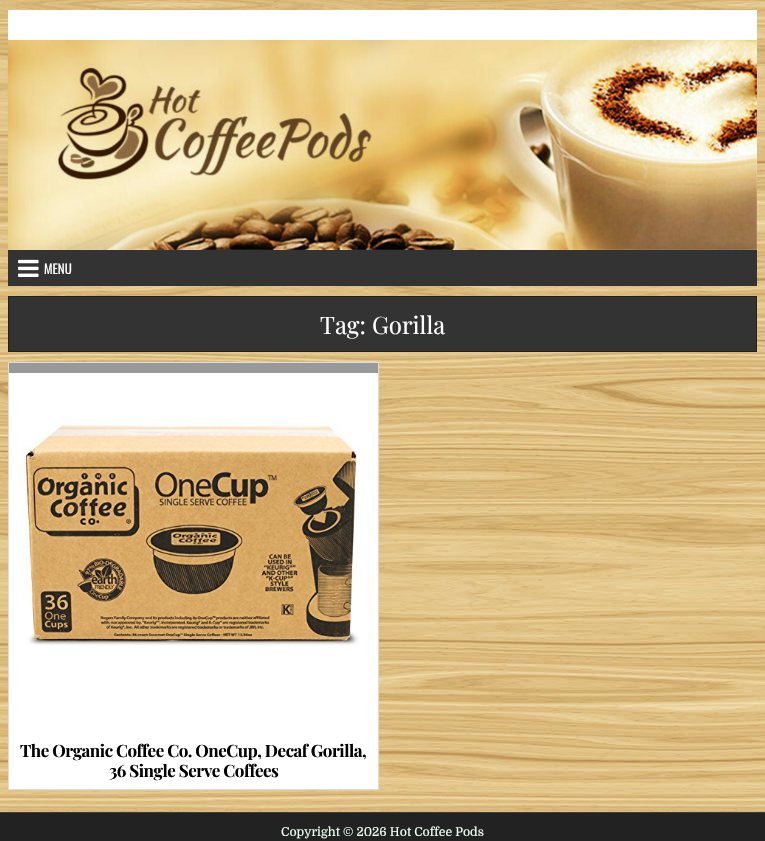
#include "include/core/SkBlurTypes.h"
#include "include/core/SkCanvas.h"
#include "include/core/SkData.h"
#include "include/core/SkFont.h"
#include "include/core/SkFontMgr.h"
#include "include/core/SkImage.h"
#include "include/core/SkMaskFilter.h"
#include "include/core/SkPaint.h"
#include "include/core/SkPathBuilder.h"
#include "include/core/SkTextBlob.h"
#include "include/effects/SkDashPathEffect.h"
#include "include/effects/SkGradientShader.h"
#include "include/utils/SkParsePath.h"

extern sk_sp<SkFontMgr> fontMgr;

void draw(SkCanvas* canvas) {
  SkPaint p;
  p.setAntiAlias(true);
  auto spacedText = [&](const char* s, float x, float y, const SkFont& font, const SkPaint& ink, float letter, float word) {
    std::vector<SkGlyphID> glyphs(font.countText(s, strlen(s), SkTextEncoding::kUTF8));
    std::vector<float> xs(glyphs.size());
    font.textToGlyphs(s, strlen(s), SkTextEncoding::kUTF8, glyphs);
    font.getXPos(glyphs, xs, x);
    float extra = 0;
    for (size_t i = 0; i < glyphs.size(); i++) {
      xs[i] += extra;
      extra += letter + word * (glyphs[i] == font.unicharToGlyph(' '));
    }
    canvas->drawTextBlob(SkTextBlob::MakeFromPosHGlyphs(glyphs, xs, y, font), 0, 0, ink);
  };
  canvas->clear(SK_ColorWHITE);
  canvas->drawImageRect(SkImages::DeferredFromEncodedData(SkData::MakeFromFileName("images/1.png")), SkRect::MakeLTRB(0, 0, 765, 812), SkSamplingOptions());
  p.setColor(SK_ColorWHITE);
  canvas->drawRect(SkRect::MakeLTRB(8, 10, 757, 250), p);
  canvas->drawImageRect(SkImages::DeferredFromEncodedData(SkData::MakeFromFileName("images/2.png")), SkRect::MakeLTRB(7, 40, 757, 250), SkSamplingOptions());
  p.setColor(SkColorSetRGB(51, 51, 51));
  canvas->drawRect(SkRect::MakeLTRB(8, 250, 757, 286), p);
  canvas->drawImageRect(SkImages::DeferredFromEncodedData(SkData::MakeFromFileName("images/3.png")), SkRect::MakeLTRB(18, 259, 39, 277), SkSamplingOptions());
  canvas->drawRect(SkRect::MakeLTRB(8.5f, 296.5f, 756.5f, 351.5f), p);
  p.setStyle(SkPaint::kStroke_Style);
  p.setStrokeWidth(1);
  p.setColor(SkColorSetRGB(34, 34, 34));
  canvas->drawRect(SkRect::MakeLTRB(8.5f, 296.5f, 756.5f, 351.5f), p);
  p.setStyle(SkPaint::kFill_Style);
  p.setColor(SK_ColorWHITE);
  canvas->drawRect(SkRect::MakeLTRB(9, 373, 378, 789), p);
  p.setStyle(SkPaint::kStroke_Style);
  p.setColor(SkColorSetRGB(221, 221, 221));
  canvas->drawRect(SkRect::MakeLTRB(8.5f, 362.5f, 378.5f, 789.5f), p);
  p.setStyle(SkPaint::kFill_Style);
  p.setColor(SkColorSetRGB(153, 153, 153));
  canvas->drawRect(SkRect::MakeLTRB(9, 363, 378, 373), p);
  canvas->drawImageRect(SkImages::DeferredFromEncodedData(SkData::MakeFromFileName("images/4.png")), SkRect::MakeLTRB(21, 422, 363, 646), SkSamplingOptions());
  p.setColor(SkColorSetRGB(34, 34, 34));
  canvas->drawRect(SkRect::MakeLTRB(0, 813, 765, 841), p);
  p.setColor(SkColorSetRGB(61, 61, 61));
  canvas->drawRect(SkRect::MakeLTRB(0, 812, 765, 813), p);
  SkFont font1(fontMgr->matchFamilyStyle("Oswald", SkFontStyle::Normal()), 13);
  font1.setSubpixel(true);
  p.setColor(SK_ColorWHITE);
  canvas->drawString("MENU", 44, 274, font1, p);
  SkFont font2(fontMgr->matchFamilyStyle("Playfair Display", SkFontStyle::Normal()), 24);
  font2.setSubpixel(true);
  canvas->drawString("Tag: Gorilla", 320, 334, font2, p);
  SkFont font3(fontMgr->matchFamilyStyle("Playfair Display", SkFontStyle::Bold()), 17);
  font3.setSubpixel(true);
  p.setColor(SK_ColorBLACK);
  spacedText("The Organic Coffee Co. OneCup, Decaf Gorilla,", 20, 757, font3, p, -0.5f, 0);
  spacedText("36 Single Serve Coffees", 109, 777, font3, p, -0.5f, 0);
  SkFont font4(fontMgr->matchFamilyStyle("Domine", SkFontStyle::Normal()), 12.3f);
  font4.setSubpixel(true);
  p.setColor(SkColorSetRGB(236, 255, 241));
  canvas->drawString("Copyright © 2026 Hot Coffee Pods", 281, 836, font4, p);
}
